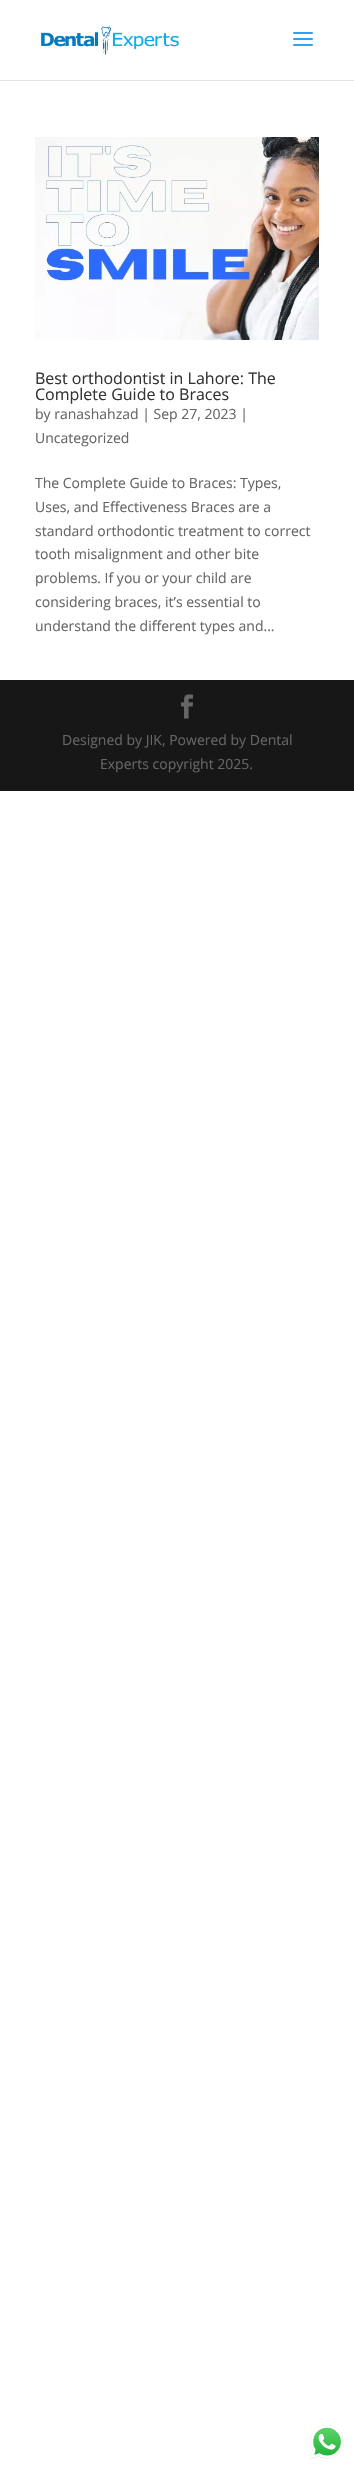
#include "include/core/SkBlurTypes.h"
#include "include/core/SkCanvas.h"
#include "include/core/SkData.h"
#include "include/core/SkFont.h"
#include "include/core/SkFontMgr.h"
#include "include/core/SkImage.h"
#include "include/core/SkMaskFilter.h"
#include "include/core/SkPaint.h"
#include "include/core/SkPathBuilder.h"
#include "include/core/SkTextBlob.h"
#include "include/effects/SkDashPathEffect.h"
#include "include/effects/SkGradientShader.h"
#include "include/utils/SkParsePath.h"

extern sk_sp<SkFontMgr> fontMgr;

void draw(SkCanvas* canvas) {
  SkPaint p;
  p.setAntiAlias(true);
  canvas->clear(SK_ColorWHITE);
  p.setColor(SkColorSetRGB(230, 230, 230));
  canvas->drawRect(SkRect::MakeLTRB(0, 80, 354, 81), p);
  canvas->drawImageRect(SkImages::DeferredFromEncodedData(SkData::MakeFromFileName("images/1.png")), SkRect::MakeLTRB(41, 26, 179, 55), SkSamplingOptions());
  canvas->drawImageRect(SkImages::DeferredFromEncodedData(SkData::MakeFromFileName("images/2.png")), SkRect::MakeLTRB(293, 32, 313, 46), SkSamplingOptions());
  canvas->drawImageRect(SkImages::DeferredFromEncodedData(SkData::MakeFromFileName("images/3.png")), SkRect::MakeLTRB(35, 137, 319, 340), SkSamplingOptions());
  p.setColor(SkColorSetRGB(23, 23, 23));
  canvas->drawRect(SkRect::MakeLTRB(0, 680, 354, 791), p);
  canvas->drawImageRect(SkImages::DeferredFromEncodedData(SkData::MakeFromFileName("images/4.png")), SkRect::MakeLTRB(181, 694, 193, 719), SkSamplingOptions());
  canvas->drawImageRect(SkImages::DeferredFromEncodedData(SkData::MakeFromFileName("images/5.png")), SkRect::MakeLTRB(310, 2425, 344, 2459), SkSamplingOptions());
  SkFont font1(fontMgr->matchFamilyStyle("Open Sans", SkFontStyle::Normal()), 16);
  font1.setSubpixel(true);
  p.setColor(SkColorSetRGB(51, 51, 51));
  canvas->drawString("Best orthodontist in Lahore: The", 35, 384, font1, p);
  canvas->drawString("Complete Guide to Braces", 35, 400, font1, p);
  SkFont font2(fontMgr->matchFamilyStyle("Open Sans", SkFontStyle::Normal()), 14);
  font2.setSubpixel(true);
  p.setColor(SkColorSetRGB(102, 102, 102));
  canvas->drawString("by ranashahzad | Sep 27, 2023 |", 35, 419, font2, p);
  canvas->drawString("Uncategorized", 35, 443, font2, p);
  canvas->drawString("The Complete Guide to Braces: Types,", 35, 488, font2, p);
  canvas->drawString("Uses, and Effectiveness Braces are a", 35, 512, font2, p);
  canvas->drawString("standard orthodontic treatment to correct", 35, 536, font2, p);
  canvas->drawString("tooth misalignment and other bite", 35, 559, font2, p);
  canvas->drawString("problems. If you or your child are", 35, 583, font2, p);
  canvas->drawString("considering braces, it’s essential to", 35, 607, font2, p);
  canvas->drawString("understand the different types and...", 35, 631, font2, p);
  canvas->drawString("Designed by JIK, Powered by Dental", 62, 745, font2, p);
  canvas->drawString("Experts copyright 2025.", 100, 769, font2, p);
}
